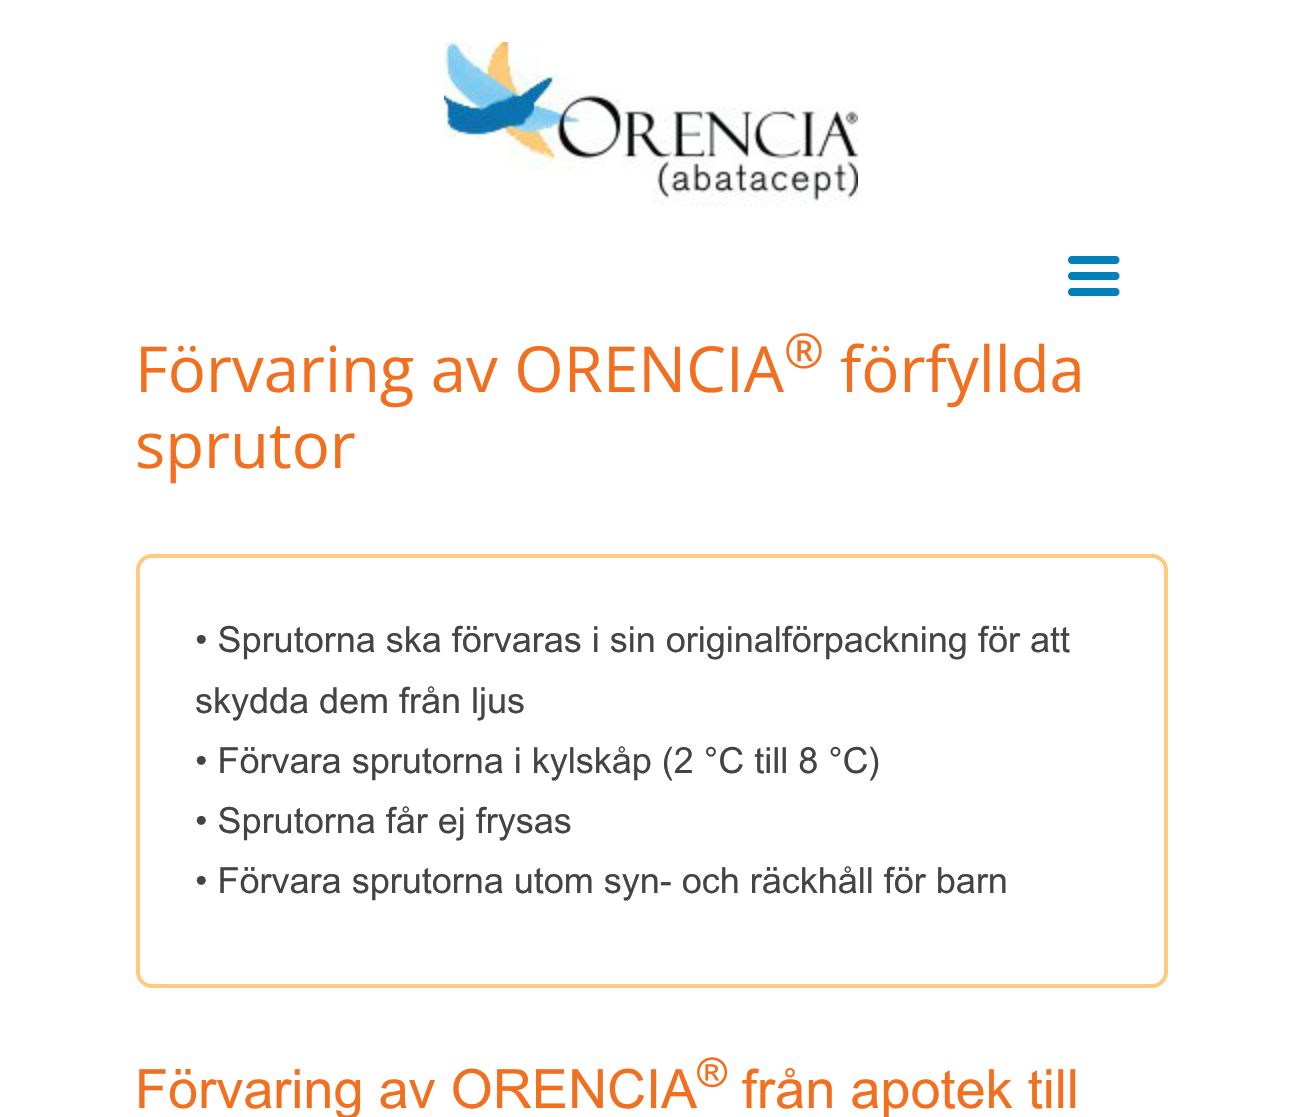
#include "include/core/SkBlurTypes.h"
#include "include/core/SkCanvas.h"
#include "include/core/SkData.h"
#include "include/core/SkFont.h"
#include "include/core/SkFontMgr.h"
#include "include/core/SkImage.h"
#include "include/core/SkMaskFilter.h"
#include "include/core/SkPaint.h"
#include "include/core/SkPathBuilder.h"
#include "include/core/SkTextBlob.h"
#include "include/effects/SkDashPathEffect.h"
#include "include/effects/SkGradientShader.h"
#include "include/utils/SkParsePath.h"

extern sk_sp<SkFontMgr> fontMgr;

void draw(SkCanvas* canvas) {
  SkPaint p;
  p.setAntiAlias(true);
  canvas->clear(SK_ColorWHITE);
  canvas->drawImageRect(SkImages::DeferredFromEncodedData(SkData::MakeFromFileName("images/1.png")), SkRect::MakeLTRB(444, 42, 858, 206), SkSamplingOptions());
  canvas->drawImageRect(SkImages::DeferredFromEncodedData(SkData::MakeFromFileName("images/2.png")), SkRect::MakeLTRB(1068, 256, 1120, 296), SkSamplingOptions());
  p.setStyle(SkPaint::kStroke_Style);
  p.setStrokeWidth(4);
  p.setColor(SkColorSetRGB(253, 202, 126));
  canvas->drawRoundRect(SkRect::MakeLTRB(138, 556, 1166, 986), 14, 14, p);
  SkFont font1(fontMgr->matchFamilyStyle("Open Sans", SkFontStyle::Normal()), 63.5f);
  font1.setSubpixel(true);
  p.setStyle(SkPaint::kFill_Style);
  p.setColor(SkColorSetRGB(242, 111, 32));
  canvas->drawString("Förvaring av ORENCIA", 135, 392, font1, p);
  SkFont font2(fontMgr->matchFamilyStyle("Open Sans", SkFontStyle::Normal()), 48);
  font2.setSubpixel(true);
  canvas->drawString("®", 784, 368, font2, p);
  canvas->drawString("förfyllda", 840, 392, font1, p);
  canvas->drawString("sprutor", 135, 468, font1, p);
  SkFont font3(fontMgr->matchFamilyStyle("Arial", SkFontStyle::Normal()), 36);
  font3.setSubpixel(true);
  p.setColor(SkColorSetRGB(68, 68, 68));
  canvas->drawString("• Sprutorna ska förvaras i sin originalförpackning för att", 195, 652, font3, p);
  canvas->drawString("skydda dem från ljus", 195, 713, font3, p);
  canvas->drawString("• Förvara sprutorna i kylskåp (2 °C till 8 °C)", 195, 773, font3, p);
  canvas->drawString("• Sprutorna får ej frysas", 195, 833, font3, p);
  canvas->drawString("• Förvara sprutorna utom syn- och räckhåll för barn", 195, 893, font3, p);
  SkFont font4(fontMgr->matchFamilyStyle("Arial", SkFontStyle::Normal()), 54.1f);
  font4.setSubpixel(true);
  p.setColor(SkColorSetRGB(242, 111, 32));
  canvas->drawString("Förvaring av ORENCIA", 135, 1108, font4, p);
  SkFont font5(fontMgr->matchFamilyStyle("Arial", SkFontStyle::Normal()), 41);
  font5.setSubpixel(true);
  canvas->drawString("®", 697, 1087, font5, p);
  canvas->drawString("från apotek till", 742, 1108, font4, p);
}
